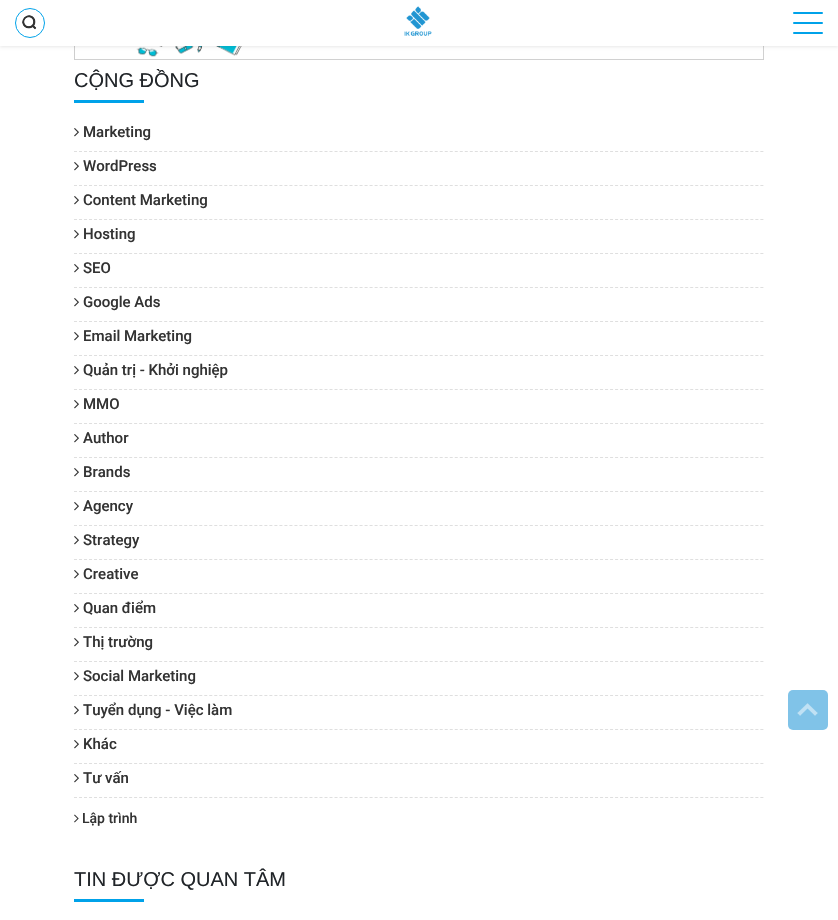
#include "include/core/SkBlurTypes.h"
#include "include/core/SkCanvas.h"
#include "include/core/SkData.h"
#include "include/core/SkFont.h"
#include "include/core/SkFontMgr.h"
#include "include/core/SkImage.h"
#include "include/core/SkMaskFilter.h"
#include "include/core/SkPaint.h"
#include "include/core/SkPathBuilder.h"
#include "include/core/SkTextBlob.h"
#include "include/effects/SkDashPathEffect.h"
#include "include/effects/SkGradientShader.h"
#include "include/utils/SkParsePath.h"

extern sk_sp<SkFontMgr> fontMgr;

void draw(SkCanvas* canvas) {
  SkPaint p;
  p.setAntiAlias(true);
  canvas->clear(SK_ColorWHITE);
  canvas->drawImageRect(SkImages::DeferredFromEncodedData(SkData::MakeFromFileName("images/3.png")), SkRect::MakeLTRB(74, 46, 764, 60), SkSamplingOptions());
  p.setColor(SkColorSetARGB(23, 0, 0, 0));
  p.setMaskFilter(SkMaskFilter::MakeBlur(kNormal_SkBlurStyle, 1.5f));
  canvas->drawRect(SkRect::MakeLTRB(0, 1, 838, 47), p);
  p.setMaskFilter(nullptr);
  p.setColor(SK_ColorWHITE);
  canvas->drawRect(SkRect::MakeLTRB(0, 0, 838, 46), p);
  p.setStyle(SkPaint::kStroke_Style);
  p.setStrokeWidth(1);
  p.setColor(SkColorSetRGB(0, 162, 233));
  canvas->drawCircle(30, 23, 14.5f, p);
  canvas->drawImageRect(SkImages::DeferredFromEncodedData(SkData::MakeFromFileName("images/1.png")), SkRect::MakeLTRB(22, 15, 37, 30), SkSamplingOptions());
  canvas->drawImageRect(SkImages::DeferredFromEncodedData(SkData::MakeFromFileName("images/2.png")), SkRect::MakeLTRB(404, 6, 432, 36), SkSamplingOptions());
  p.setStyle(SkPaint::kFill_Style);
  canvas->drawRoundRect(SkRect::MakeLTRB(793, 32, 823, 34), 1, 1, p);
  canvas->drawRoundRect(SkRect::MakeLTRB(793, 12, 823, 14), 1, 1, p);
  canvas->drawRoundRect(SkRect::MakeLTRB(793, 22, 823, 24), 1, 1, p);
  canvas->drawRect(SkRect::MakeLTRB(74, 100, 144, 103), p);
  p.setStyle(SkPaint::kStroke_Style);
  p.setColor(SkColorSetRGB(223, 223, 223));
  p.setPathEffect(SkDashPathEffect::Make({{3, 2.01f}}, 0));
  canvas->drawPath(SkPathBuilder().moveTo(74, 151.5f).lineTo(764, 151.5f).detach(), p);
  p.setPathEffect(nullptr);
  canvas->drawImageRect(SkImages::DeferredFromEncodedData(SkData::MakeFromFileName("images/4.png")), SkRect::MakeLTRB(74, 128, 79, 137), SkSamplingOptions());
  p.setPathEffect(SkDashPathEffect::Make({{3, 2.01f}}, 0));
  canvas->drawPath(SkPathBuilder().moveTo(74, 185.5f).lineTo(764, 185.5f).detach(), p);
  p.setPathEffect(nullptr);
  canvas->drawImageRect(SkImages::DeferredFromEncodedData(SkData::MakeFromFileName("images/4.png")), SkRect::MakeLTRB(74, 162, 79, 171), SkSamplingOptions());
  p.setPathEffect(SkDashPathEffect::Make({{3, 2.01f}}, 0));
  canvas->drawPath(SkPathBuilder().moveTo(74, 219.5f).lineTo(764, 219.5f).detach(), p);
  p.setPathEffect(nullptr);
  canvas->drawImageRect(SkImages::DeferredFromEncodedData(SkData::MakeFromFileName("images/4.png")), SkRect::MakeLTRB(74, 196, 79, 205), SkSamplingOptions());
  p.setPathEffect(SkDashPathEffect::Make({{3, 2.01f}}, 0));
  canvas->drawPath(SkPathBuilder().moveTo(74, 253.5f).lineTo(764, 253.5f).detach(), p);
  p.setPathEffect(nullptr);
  canvas->drawImageRect(SkImages::DeferredFromEncodedData(SkData::MakeFromFileName("images/4.png")), SkRect::MakeLTRB(74, 230, 79, 239), SkSamplingOptions());
  p.setPathEffect(SkDashPathEffect::Make({{3, 2.01f}}, 0));
  canvas->drawPath(SkPathBuilder().moveTo(74, 287.5f).lineTo(764, 287.5f).detach(), p);
  p.setPathEffect(nullptr);
  canvas->drawImageRect(SkImages::DeferredFromEncodedData(SkData::MakeFromFileName("images/4.png")), SkRect::MakeLTRB(74, 264, 79, 273), SkSamplingOptions());
  p.setPathEffect(SkDashPathEffect::Make({{3, 2.01f}}, 0));
  canvas->drawPath(SkPathBuilder().moveTo(74, 321.5f).lineTo(764, 321.5f).detach(), p);
  p.setPathEffect(nullptr);
  canvas->drawImageRect(SkImages::DeferredFromEncodedData(SkData::MakeFromFileName("images/4.png")), SkRect::MakeLTRB(74, 298, 79, 307), SkSamplingOptions());
  p.setPathEffect(SkDashPathEffect::Make({{3, 2.01f}}, 0));
  canvas->drawPath(SkPathBuilder().moveTo(74, 355.5f).lineTo(764, 355.5f).detach(), p);
  p.setPathEffect(nullptr);
  canvas->drawImageRect(SkImages::DeferredFromEncodedData(SkData::MakeFromFileName("images/4.png")), SkRect::MakeLTRB(74, 332, 79, 341), SkSamplingOptions());
  p.setPathEffect(SkDashPathEffect::Make({{3, 2.01f}}, 0));
  canvas->drawPath(SkPathBuilder().moveTo(74, 389.5f).lineTo(764, 389.5f).detach(), p);
  p.setPathEffect(nullptr);
  canvas->drawImageRect(SkImages::DeferredFromEncodedData(SkData::MakeFromFileName("images/4.png")), SkRect::MakeLTRB(74, 366, 79, 375), SkSamplingOptions());
  p.setPathEffect(SkDashPathEffect::Make({{3, 2.01f}}, 0));
  canvas->drawPath(SkPathBuilder().moveTo(74, 423.5f).lineTo(764, 423.5f).detach(), p);
  p.setPathEffect(nullptr);
  canvas->drawImageRect(SkImages::DeferredFromEncodedData(SkData::MakeFromFileName("images/4.png")), SkRect::MakeLTRB(74, 400, 79, 409), SkSamplingOptions());
  p.setPathEffect(SkDashPathEffect::Make({{3, 2.01f}}, 0));
  canvas->drawPath(SkPathBuilder().moveTo(74, 457.5f).lineTo(764, 457.5f).detach(), p);
  p.setPathEffect(nullptr);
  canvas->drawImageRect(SkImages::DeferredFromEncodedData(SkData::MakeFromFileName("images/4.png")), SkRect::MakeLTRB(74, 434, 79, 443), SkSamplingOptions());
  p.setPathEffect(SkDashPathEffect::Make({{3, 2.01f}}, 0));
  canvas->drawPath(SkPathBuilder().moveTo(74, 491.5f).lineTo(764, 491.5f).detach(), p);
  p.setPathEffect(nullptr);
  canvas->drawImageRect(SkImages::DeferredFromEncodedData(SkData::MakeFromFileName("images/4.png")), SkRect::MakeLTRB(74, 468, 79, 477), SkSamplingOptions());
  p.setPathEffect(SkDashPathEffect::Make({{3, 2.01f}}, 0));
  canvas->drawPath(SkPathBuilder().moveTo(74, 525.5f).lineTo(764, 525.5f).detach(), p);
  p.setPathEffect(nullptr);
  canvas->drawImageRect(SkImages::DeferredFromEncodedData(SkData::MakeFromFileName("images/4.png")), SkRect::MakeLTRB(74, 502, 79, 511), SkSamplingOptions());
  p.setPathEffect(SkDashPathEffect::Make({{3, 2.01f}}, 0));
  canvas->drawPath(SkPathBuilder().moveTo(74, 559.5f).lineTo(764, 559.5f).detach(), p);
  p.setPathEffect(nullptr);
  canvas->drawImageRect(SkImages::DeferredFromEncodedData(SkData::MakeFromFileName("images/4.png")), SkRect::MakeLTRB(74, 536, 79, 545), SkSamplingOptions());
  p.setPathEffect(SkDashPathEffect::Make({{3, 2.01f}}, 0));
  canvas->drawPath(SkPathBuilder().moveTo(74, 593.5f).lineTo(764, 593.5f).detach(), p);
  p.setPathEffect(nullptr);
  canvas->drawImageRect(SkImages::DeferredFromEncodedData(SkData::MakeFromFileName("images/4.png")), SkRect::MakeLTRB(74, 570, 79, 579), SkSamplingOptions());
  p.setPathEffect(SkDashPathEffect::Make({{3, 2.01f}}, 0));
  canvas->drawPath(SkPathBuilder().moveTo(74, 627.5f).lineTo(764, 627.5f).detach(), p);
  p.setPathEffect(nullptr);
  canvas->drawImageRect(SkImages::DeferredFromEncodedData(SkData::MakeFromFileName("images/4.png")), SkRect::MakeLTRB(74, 604, 79, 613), SkSamplingOptions());
  p.setPathEffect(SkDashPathEffect::Make({{3, 2.01f}}, 0));
  canvas->drawPath(SkPathBuilder().moveTo(74, 661.5f).lineTo(764, 661.5f).detach(), p);
  p.setPathEffect(nullptr);
  canvas->drawImageRect(SkImages::DeferredFromEncodedData(SkData::MakeFromFileName("images/4.png")), SkRect::MakeLTRB(74, 638, 79, 647), SkSamplingOptions());
  p.setPathEffect(SkDashPathEffect::Make({{3, 2.01f}}, 0));
  canvas->drawPath(SkPathBuilder().moveTo(74, 695.5f).lineTo(764, 695.5f).detach(), p);
  p.setPathEffect(nullptr);
  canvas->drawImageRect(SkImages::DeferredFromEncodedData(SkData::MakeFromFileName("images/4.png")), SkRect::MakeLTRB(74, 672, 79, 681), SkSamplingOptions());
  p.setPathEffect(SkDashPathEffect::Make({{3, 2.01f}}, 0));
  canvas->drawPath(SkPathBuilder().moveTo(74, 729.5f).lineTo(764, 729.5f).detach(), p);
  p.setPathEffect(nullptr);
  canvas->drawImageRect(SkImages::DeferredFromEncodedData(SkData::MakeFromFileName("images/4.png")), SkRect::MakeLTRB(74, 706, 79, 715), SkSamplingOptions());
  p.setPathEffect(SkDashPathEffect::Make({{3, 2.01f}}, 0));
  canvas->drawPath(SkPathBuilder().moveTo(74, 763.5f).lineTo(764, 763.5f).detach(), p);
  p.setPathEffect(nullptr);
  canvas->drawImageRect(SkImages::DeferredFromEncodedData(SkData::MakeFromFileName("images/4.png")), SkRect::MakeLTRB(74, 740, 79, 749), SkSamplingOptions());
  p.setPathEffect(SkDashPathEffect::Make({{3, 2.01f}}, 0));
  canvas->drawPath(SkPathBuilder().moveTo(74, 797.5f).lineTo(764, 797.5f).detach(), p);
  p.setPathEffect(nullptr);
  canvas->drawImageRect(SkImages::DeferredFromEncodedData(SkData::MakeFromFileName("images/4.png")), SkRect::MakeLTRB(74, 774, 79, 783), SkSamplingOptions());
  canvas->drawImageRect(SkImages::DeferredFromEncodedData(SkData::MakeFromFileName("images/5.png")), SkRect::MakeLTRB(74, 814, 79, 823), SkSamplingOptions());
  p.setStyle(SkPaint::kFill_Style);
  p.setColor(SkColorSetRGB(0, 162, 233));
  canvas->drawRect(SkRect::MakeLTRB(74, 899, 144, 902), p);
  p.setColor(SkColorSetRGB(128, 195, 232));
  canvas->drawRoundRect(SkRect::MakeLTRB(788, 690, 828, 730), 5, 5, p);
  canvas->drawImageRect(SkImages::DeferredFromEncodedData(SkData::MakeFromFileName("images/6.png")), SkRect::MakeLTRB(797, 703, 818, 716), SkSamplingOptions());
  SkFont font1(fontMgr->matchFamilyStyle("Liberation Sans", SkFontStyle::Normal()), 20);
  font1.setSubpixel(true);
  p.setColor(SkColorSetRGB(33, 37, 41));
  canvas->drawString("CỘNG ĐỒNG", 74, 87, font1, p);
  SkFont font2(fontMgr->matchFamilyStyle("Roboto", SkFontStyle(500, SkFontStyle::kNormal_Width, SkFontStyle::kUpright_Slant)), 15);
  font2.setSubpixel(true);
  p.setColor(SkColorSetRGB(51, 51, 51));
  canvas->drawString("Marketing", 83, 137, font2, p);
  canvas->drawString("WordPress", 83, 171, font2, p);
  canvas->drawString("Content Marketing", 83, 205, font2, p);
  canvas->drawString("Hosting", 83, 239, font2, p);
  canvas->drawString("SEO", 83, 273, font2, p);
  canvas->drawString("Google Ads", 83, 307, font2, p);
  canvas->drawString("Email Marketing", 83, 341, font2, p);
  canvas->drawString("Quản trị - Khởi nghiệp", 83, 375, font2, p);
  canvas->drawString("MMO", 83, 409, font2, p);
  canvas->drawString("Author", 83, 443, font2, p);
  canvas->drawString("Brands", 83, 477, font2, p);
  canvas->drawString("Agency", 83, 511, font2, p);
  canvas->drawString("Strategy", 83, 545, font2, p);
  canvas->drawString("Creative", 83, 579, font2, p);
  canvas->drawString("Quan điểm", 83, 613, font2, p);
  canvas->drawString("Thị trường", 83, 647, font2, p);
  canvas->drawString("Social Marketing", 83, 681, font2, p);
  canvas->drawString("Tuyển dụng - Việc làm", 83, 715, font2, p);
  canvas->drawString("Khác", 83, 749, font2, p);
  canvas->drawString("Tư vấn", 83, 783, font2, p);
  SkFont font3(fontMgr->matchFamilyStyle("Roboto", SkFontStyle(500, SkFontStyle::kNormal_Width, SkFontStyle::kUpright_Slant)), 14);
  font3.setSubpixel(true);
  canvas->drawString("Lập trình", 82, 823, font3, p);
  p.setColor(SkColorSetRGB(33, 37, 41));
  canvas->drawString("TIN ĐƯỢC QUAN TÂM", 74, 886, font1, p);
}
